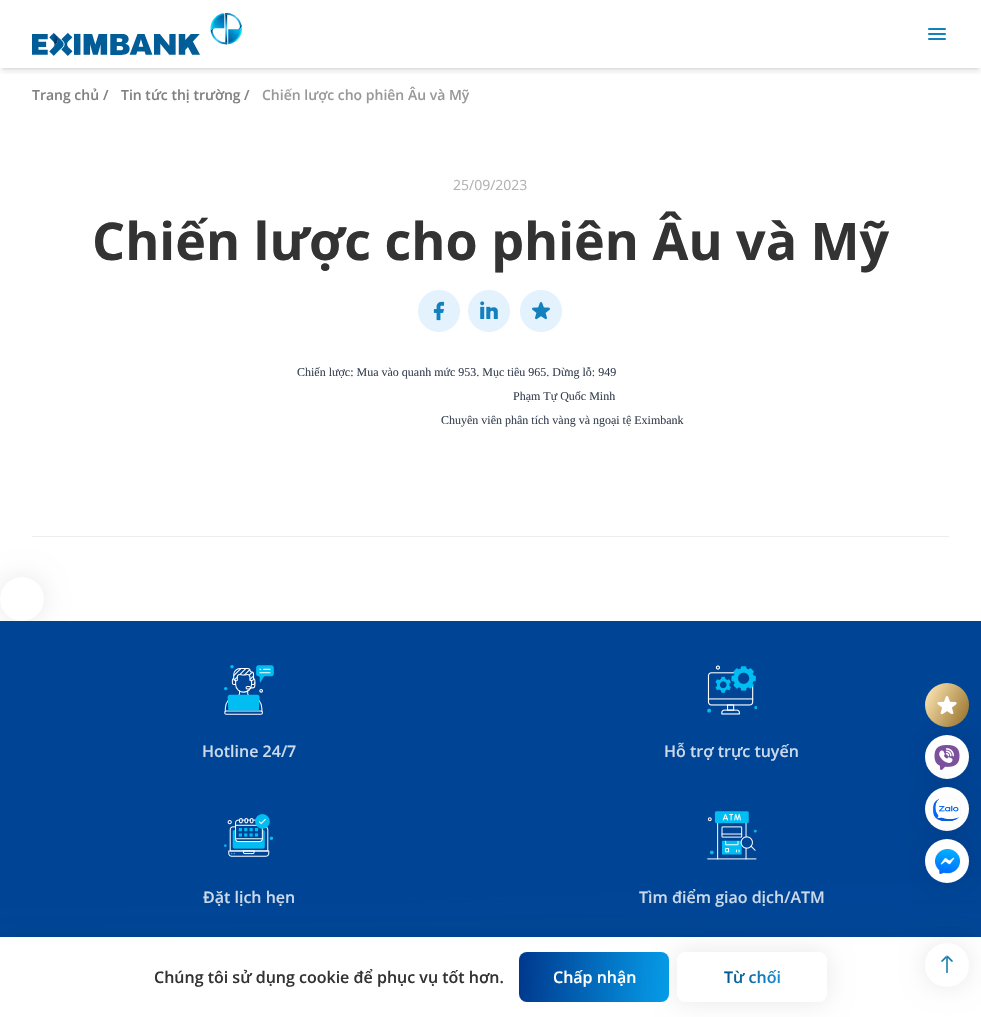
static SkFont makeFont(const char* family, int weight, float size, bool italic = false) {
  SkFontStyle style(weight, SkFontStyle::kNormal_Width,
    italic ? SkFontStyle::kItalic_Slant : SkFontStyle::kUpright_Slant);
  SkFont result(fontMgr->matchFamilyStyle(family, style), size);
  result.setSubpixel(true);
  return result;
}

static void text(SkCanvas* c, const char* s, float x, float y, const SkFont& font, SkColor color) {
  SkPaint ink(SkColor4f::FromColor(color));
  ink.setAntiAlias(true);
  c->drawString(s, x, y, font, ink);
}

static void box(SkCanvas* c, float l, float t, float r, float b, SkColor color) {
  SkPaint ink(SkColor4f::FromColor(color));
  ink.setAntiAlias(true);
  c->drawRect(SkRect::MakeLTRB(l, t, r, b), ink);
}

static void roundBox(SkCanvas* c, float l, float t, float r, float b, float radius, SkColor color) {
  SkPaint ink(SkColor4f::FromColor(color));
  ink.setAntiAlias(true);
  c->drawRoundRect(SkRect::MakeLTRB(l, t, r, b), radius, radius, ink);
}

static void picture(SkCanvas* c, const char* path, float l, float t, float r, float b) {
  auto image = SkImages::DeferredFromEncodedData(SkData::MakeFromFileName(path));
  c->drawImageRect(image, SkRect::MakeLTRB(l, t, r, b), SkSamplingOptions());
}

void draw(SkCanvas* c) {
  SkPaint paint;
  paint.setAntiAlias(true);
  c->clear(0xffffffff);
  c->save();
  c->clipRect(SkRect::MakeLTRB(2, 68, 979, 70));
  paint.setColor(0x1a000000);
  paint.setMaskFilter(SkMaskFilter::MakeBlur(kNormal_SkBlurStyle, 2));
  c->drawRect(SkRect::MakeLTRB(2, 4, 979, 68), paint);
  paint.setMaskFilter(nullptr);
  c->restore();
  c->save();
  c->clipRect(SkRect::MakeLTRB(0, 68, 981, 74));
  paint.setMaskFilter(SkMaskFilter::MakeBlur(kNormal_SkBlurStyle, 3));
  c->drawRect(SkRect::MakeLTRB(1, 5, 980, 71), paint);
  paint.setMaskFilter(nullptr);
  c->restore();
  picture(c, "img_01.png", 32, 13, 242, 56);
  picture(c, "img_02.png", 928, 28, 946, 40);
  SkFont face1 = makeFont("Open Sans", 600, 14);
  text(c, "Trang chủ", 32, 100, face1, 0xff808080);
  text(c, "/", 103, 100, face1, 0xff808080);
  text(c, "Tin tức thị trường", 121, 100, face1, 0xff808080);
  text(c, "/", 244, 100, face1, 0xff808080);
  text(c, "Chiến lược cho phiên Âu và Mỹ", 262, 100, face1, 0xff999999);
  box(c, 32, 536, 949, 537, 0xffededed);
  SkFont face2 = makeFont("Open Sans", 400, 14);
  text(c, "25/09/2023", 453, 190, face2, 0xffb3b3b3);
  SkFont face3 = makeFont("Open Sans", 700, 52);
  text(c, "Chiến lược cho phiên Âu và Mỹ", 92, 260, face3, 0xff333333);
  picture(c, "img_03.png", 418, 290, 460, 332);
  picture(c, "img_04.png", 468, 290, 510, 332);
  picture(c, "img_05.png", 520, 290, 562, 332);
  SkFont face4 = makeFont("Liberation Serif", 400, 12);
  text(c, "Chiến lược: Mua vào quanh mức 953. Mục tiêu 965. Dừng lỗ: 949", 297, 376, face4, 0xff374151);
  text(c, "Phạm Tự Quốc Minh", 513, 400, face4, 0xff374151);
  text(c, "Chuyên viên phân tích vàng và ngoại tệ Eximbank", 441, 424, face4, 0xff374151);
  paint.setColor(0x17000000);
  paint.setMaskFilter(SkMaskFilter::MakeBlur(kNormal_SkBlurStyle, 12.5f));
  c->drawRoundRect(SkRect::MakeLTRB(0, 577, 44, 621), 22, 22, paint);
  paint.setMaskFilter(nullptr);
  paint.setColor(0xffffffff);
  c->drawCircle(22, 599, 22, paint);
  {
    const SkColor colors[] = {0xff004496, 0xff1b96d5};
    const float stops[] = {0.1f, 1};
    SkMatrix m = SkMatrix::Translate(-6.9f, 695).preScale(19628, 1978);
    paint.setShader(SkGradientShader::MakeRadial({0, 0}, 1, colors, stops, 2, SkTileMode::kClamp, 0, &m));
    paint.setAlpha(255);
  }
  c->drawRect(SkRect::MakeLTRB(0, 621, 981, 937), paint);
  picture(c, "img_06.png", 224, 665, 274, 715);
  SkFont face5 = makeFont("Open Sans", 600, 16);
  text(c, "Hotline 24/7", 202, 757, face5, 0xffccdaea);
  picture(c, "img_07.png", 707, 665, 757, 715);
  text(c, "Hỗ trợ trực tuyến", 664, 757, face5, 0xffccdaea);
  picture(c, "img_08.png", 224, 814, 274, 857);
  text(c, "Đặt lịch hẹn", 203, 903, face5, 0xffccdaea);
  picture(c, "img_09.png", 707, 811, 757, 860);
  text(c, "Tìm điểm giao dịch/ATM", 639, 903, face5, 0xffccdaea);
  {
    const SkColor colors[] = {0xffffe7b6, 0xff967229};
    const float stops[] = {0.04f, 0.97f};
    const SkPoint ends[] = {{921, 691}, {973, 719}};
    paint.setShader(SkGradientShader::MakeLinear(ends, colors, stops, 2, SkTileMode::kClamp));
    paint.setAlpha(255);
  }
  c->drawCircle(947, 705, 22, paint);
  picture(c, "img_10.png", 937, 696, 957, 714);
  paint.setShader(nullptr);
  paint.setColor(0x17000000);
  paint.setMaskFilter(SkMaskFilter::MakeBlur(kNormal_SkBlurStyle, 12.5f));
  c->drawRoundRect(SkRect::MakeLTRB(925, 735, 969, 779), 22, 22, paint);
  paint.setMaskFilter(nullptr);
  paint.setColor(0xffffffff);
  c->drawCircle(947, 757, 22, paint);
  picture(c, "img_11.png", 934, 745, 960, 770);
  paint.setColor(0x17000000);
  paint.setMaskFilter(SkMaskFilter::MakeBlur(kNormal_SkBlurStyle, 12.5f));
  c->drawRoundRect(SkRect::MakeLTRB(925, 787, 969, 831), 22, 22, paint);
  paint.setMaskFilter(nullptr);
  paint.setColor(0xffffffff);
  c->drawCircle(947, 809, 22, paint);
  picture(c, "img_12.png", 932, 797, 961, 822);
  paint.setColor(0x17000000);
  paint.setMaskFilter(SkMaskFilter::MakeBlur(kNormal_SkBlurStyle, 12.5f));
  c->drawRoundRect(SkRect::MakeLTRB(925, 839, 969, 883), 22, 22, paint);
  paint.setMaskFilter(nullptr);
  paint.setColor(0xffffffff);
  c->drawCircle(947, 861, 22, paint);
  picture(c, "img_13.png", 935, 849, 960, 874);
  paint.setColor(0x17000000);
  paint.setMaskFilter(SkMaskFilter::MakeBlur(kNormal_SkBlurStyle, 12.5f));
  c->drawRect(SkRect::MakeLTRB(0, 937, 981, 1017), paint);
  paint.setMaskFilter(nullptr);
  box(c, 0, 937, 981, 1017, 0xffffffff);
  paint.setMaskFilter(SkMaskFilter::MakeBlur(kNormal_SkBlurStyle, 12.5f));
  c->drawRoundRect(SkRect::MakeLTRB(925, 943, 969, 987), 22, 22, paint);
  paint.setMaskFilter(nullptr);
  paint.setColor(0xffffffff);
  c->drawPath(SkPathBuilder().moveTo(925, 965).cubicTo(925, 936, 969, 936, 969, 965).cubicTo(969, 994, 925, 994, 925, 965).close().detach(), paint);
  picture(c, "img_14.png", 941, 955, 953, 974);
  text(c, "Chúng tôi sử dụng cookie để phục vụ tốt hơn.", 154, 983, face5, 0xff333333);
  {
    const SkColor colors[] = {0xff00388d, 0xff06a5f1};
    const float stops[] = {0, 1};
    const SkPoint ends[] = {{518, 973}, {681, 982}};
    paint.setShader(SkGradientShader::MakeLinear(ends, colors, stops, 2, SkTileMode::kClamp));
    paint.setAlpha(255);
  }
  c->drawRoundRect(SkRect::MakeLTRB(519, 952, 669, 1002), 8, 8, paint);
  text(c, "Chấp nhận", 553, 983, face5, 0xffffffff);
  paint.setShader(nullptr);
  paint.setColor(0x17000000);
  paint.setMaskFilter(SkMaskFilter::MakeBlur(kNormal_SkBlurStyle, 12.5f));
  c->drawRoundRect(SkRect::MakeLTRB(677, 952, 827, 1002), 8, 8, paint);
  paint.setMaskFilter(nullptr);
  roundBox(c, 677, 952, 827, 1002, 8, 0xffffffff);
  {
    const SkColor colors[] = {0xff00538d, 0xff1b96d5};
    const float stops[] = {0, 1};
    const SkPoint ends[] = {{723, 975}, {786, 979}};
    paint.setShader(SkGradientShader::MakeLinear(ends, colors, stops, 2, SkTileMode::kClamp));
    paint.setAlpha(255);
  }
  c->drawString("Từ chối", 724, 983, face5, paint);
}
